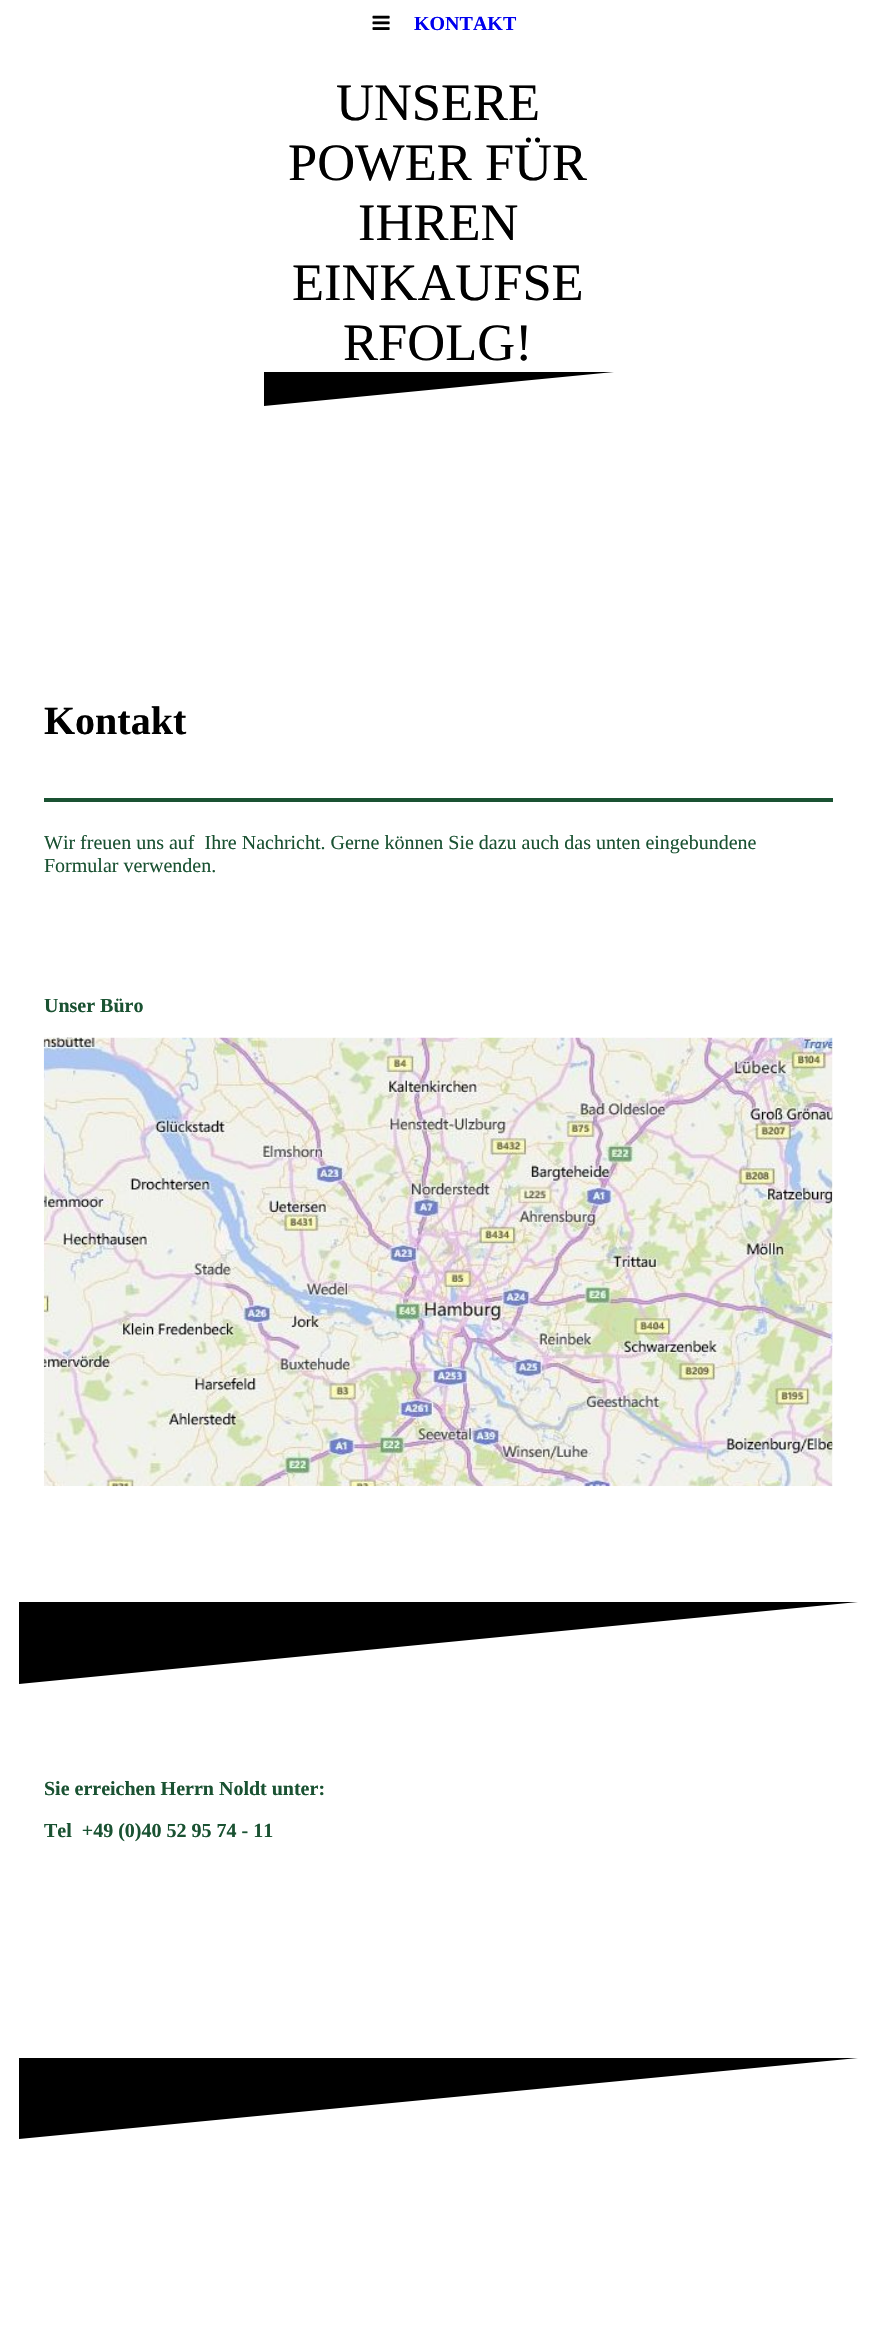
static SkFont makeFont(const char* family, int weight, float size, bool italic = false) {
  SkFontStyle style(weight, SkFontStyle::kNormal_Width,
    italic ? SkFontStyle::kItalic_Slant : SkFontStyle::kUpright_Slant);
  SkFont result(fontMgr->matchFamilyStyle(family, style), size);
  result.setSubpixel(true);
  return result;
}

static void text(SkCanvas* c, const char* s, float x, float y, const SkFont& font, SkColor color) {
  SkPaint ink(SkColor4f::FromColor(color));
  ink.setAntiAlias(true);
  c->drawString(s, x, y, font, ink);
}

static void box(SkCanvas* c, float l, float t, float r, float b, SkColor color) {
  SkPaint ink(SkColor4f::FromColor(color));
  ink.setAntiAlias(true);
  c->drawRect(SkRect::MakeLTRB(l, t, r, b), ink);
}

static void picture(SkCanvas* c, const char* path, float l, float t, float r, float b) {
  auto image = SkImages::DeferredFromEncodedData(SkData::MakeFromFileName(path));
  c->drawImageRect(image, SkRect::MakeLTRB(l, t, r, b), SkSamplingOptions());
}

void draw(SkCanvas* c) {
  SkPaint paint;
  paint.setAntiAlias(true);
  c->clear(0xffffffff);
  picture(c, "img_01.png", 372, 15, 390, 30);
  SkFont face1 = makeFont("Liberation Serif", 700, 20);
  text(c, "KONTAKT", 414, 30, face1, 0xff0000ee);
  SkFont face2 = makeFont("Liberation Serif", 400, 52.5f);
  text(c, "UNSERE", 336, 120, face2, 0xff000000);
  text(c, "POWER FÜR", 288, 180, face2, 0xff000000);
  text(c, "IHREN", 358, 240, face2, 0xff000000);
  text(c, "EINKAUFSE", 292, 300, face2, 0xff000000);
  text(c, "RFOLG!", 343, 360, face2, 0xff000000);
  paint.setColor(0xff000000);
  c->drawPath(SkPathBuilder().moveTo(264, 406).lineTo(264, 372).lineTo(614, 372).close().detach(), paint);
  SkFont face3 = makeFont("Liberation Serif", 700, 40);
  text(c, "Kontakt", 44, 734, face3, 0xff000000);
  box(c, 44, 798, 833, 802, 0xff1a5232);
  SkFont face4 = makeFont("Liberation Serif", 400, 20);
  text(c, "Wir freuen uns auf  Ihre Nachricht. Gerne können Sie dazu auch das unten eingebundene", 44, 849, face4, 0xff1a5232);
  text(c, "Formular verwenden.", 44, 872, face4, 0xff1a5232);
  text(c, "Unser Büro", 44, 1012, face1, 0xff1a5232);
  picture(c, "img_02.png", 43, 1037, 833, 1487);
  c->drawPath(SkPathBuilder().moveTo(19, 1684).lineTo(19, 1602).lineTo(858, 1602).close().detach(), paint);
  text(c, "Sie erreichen Herrn Noldt unter:", 44, 1795, face1, 0xff1a5232);
  text(c, "Tel  +49 (0)40 52 95 74 - 11", 44, 1837, face1, 0xff1a5232);
  c->drawPath(SkPathBuilder().moveTo(19, 2139).lineTo(19, 2058).lineTo(858, 2058).close().detach(), paint);
}
